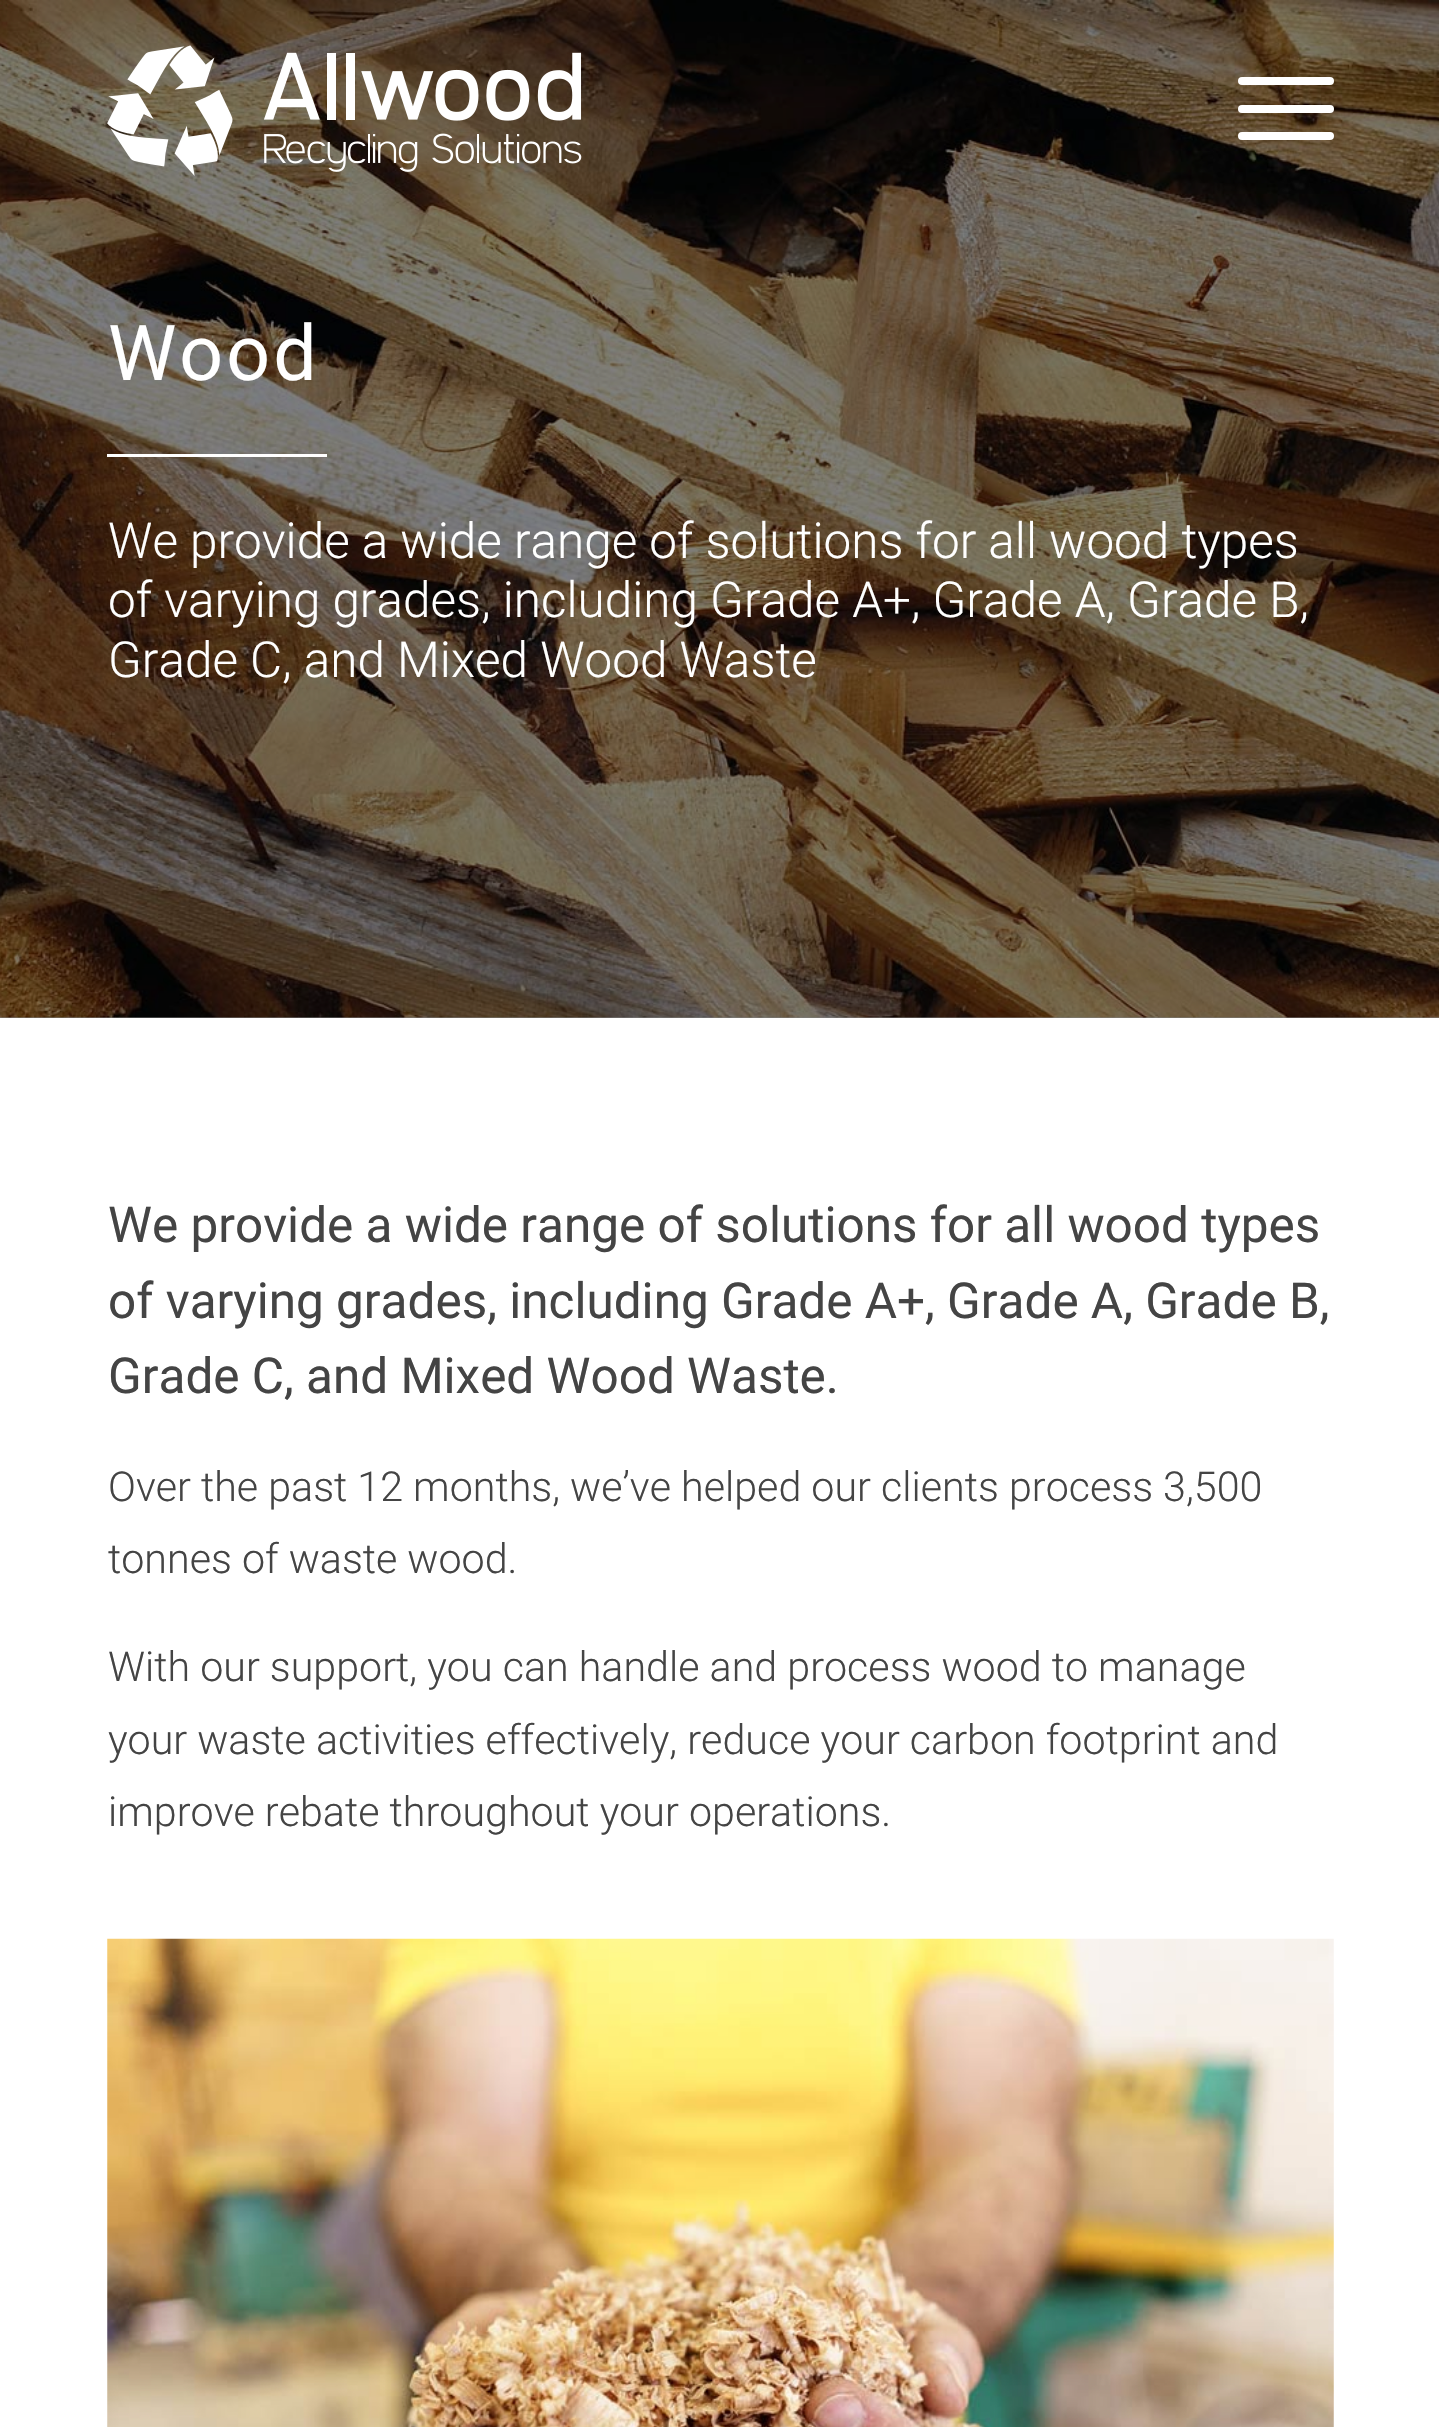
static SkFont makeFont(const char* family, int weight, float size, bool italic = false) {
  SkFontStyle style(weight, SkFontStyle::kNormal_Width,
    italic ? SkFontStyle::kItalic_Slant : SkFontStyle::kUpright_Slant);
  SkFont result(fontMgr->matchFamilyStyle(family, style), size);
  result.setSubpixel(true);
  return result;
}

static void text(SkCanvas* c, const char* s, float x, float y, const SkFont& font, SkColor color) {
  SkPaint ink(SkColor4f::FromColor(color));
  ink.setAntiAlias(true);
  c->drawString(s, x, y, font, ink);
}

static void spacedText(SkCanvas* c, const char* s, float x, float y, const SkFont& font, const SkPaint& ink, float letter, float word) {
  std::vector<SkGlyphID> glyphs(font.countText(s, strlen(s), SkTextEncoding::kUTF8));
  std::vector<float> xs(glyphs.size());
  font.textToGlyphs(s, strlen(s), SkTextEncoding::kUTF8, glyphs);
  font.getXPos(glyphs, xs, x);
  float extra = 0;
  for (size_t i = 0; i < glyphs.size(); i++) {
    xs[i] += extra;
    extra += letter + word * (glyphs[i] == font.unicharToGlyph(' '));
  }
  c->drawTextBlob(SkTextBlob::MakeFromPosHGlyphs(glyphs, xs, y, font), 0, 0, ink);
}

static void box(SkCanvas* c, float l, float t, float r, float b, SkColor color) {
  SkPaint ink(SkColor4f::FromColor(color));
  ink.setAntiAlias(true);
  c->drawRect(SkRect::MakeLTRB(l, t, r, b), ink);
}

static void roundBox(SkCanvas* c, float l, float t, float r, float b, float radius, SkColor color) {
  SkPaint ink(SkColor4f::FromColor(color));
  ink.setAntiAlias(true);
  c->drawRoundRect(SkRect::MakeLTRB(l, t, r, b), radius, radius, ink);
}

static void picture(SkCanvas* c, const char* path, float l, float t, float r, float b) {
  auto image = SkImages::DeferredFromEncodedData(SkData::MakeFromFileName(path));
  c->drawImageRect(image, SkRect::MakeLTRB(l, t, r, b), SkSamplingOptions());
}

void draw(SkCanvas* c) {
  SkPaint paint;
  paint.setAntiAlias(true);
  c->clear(0xffffffff);
  box(c, 0, 1017, 1439, 1018, 0xff808080);
  picture(c, "img_02.png", 0, 0, 1439, 1018);
  picture(c, "img_01.png", 107, 45, 582, 176);
  roundBox(c, 1238, 105, 1334, 113, 4, 0xffffffff);
  roundBox(c, 1238, 77, 1334, 85, 4, 0xffffffff);
  roundBox(c, 1238, 132, 1334, 140, 4, 0xffffffff);
  SkFont face1 = makeFont("Roboto", 400, 77);
  paint.setColor(0xffffffff);
  spacedText(c, "Wood", 108, 380, face1, paint, 3, 0);
  box(c, 107, 454, 327, 457, 0xffffffff);
  SkFont face2 = makeFont("Roboto", 300, 49.5f);
  text(c, "We provide a wide range of solutions for all wood types", 108, 558, face2, 0xffffffff);
  text(c, "of varying grades, including Grade A+, Grade A, Grade B,", 108, 617, face2, 0xffffffff);
  text(c, "Grade C, and Mixed Wood Waste", 108, 677, face2, 0xffffffff);
  SkFont face3 = makeFont("Roboto", 400, 49.5f);
  text(c, "We provide a wide range of solutions for all wood types", 108, 1242, face3, 0xff444444);
  text(c, "of varying grades, including Grade A+, Grade A, Grade B,", 108, 1318, face3, 0xff444444);
  text(c, "Grade C, and Mixed Wood Waste.", 108, 1393, face3, 0xff444444);
  SkFont face4 = makeFont("Roboto", 300, 41.25f);
  text(c, "Over the past 12 months, we’ve helped our clients process 3,500", 108, 1501, face4, 0xff444444);
  text(c, "tonnes of waste wood.", 108, 1573, face4, 0xff444444);
  text(c, "With our support, you can handle and process wood to manage", 108, 1681, face4, 0xff444444);
  text(c, "your waste activities effectively, reduce your carbon footprint and", 108, 1754, face4, 0xff444444);
  text(c, "improve rebate throughout your operations.", 108, 1826, face4, 0xff444444);
  picture(c, "img_03.png", 107, 1938, 1334, 2427);
}
